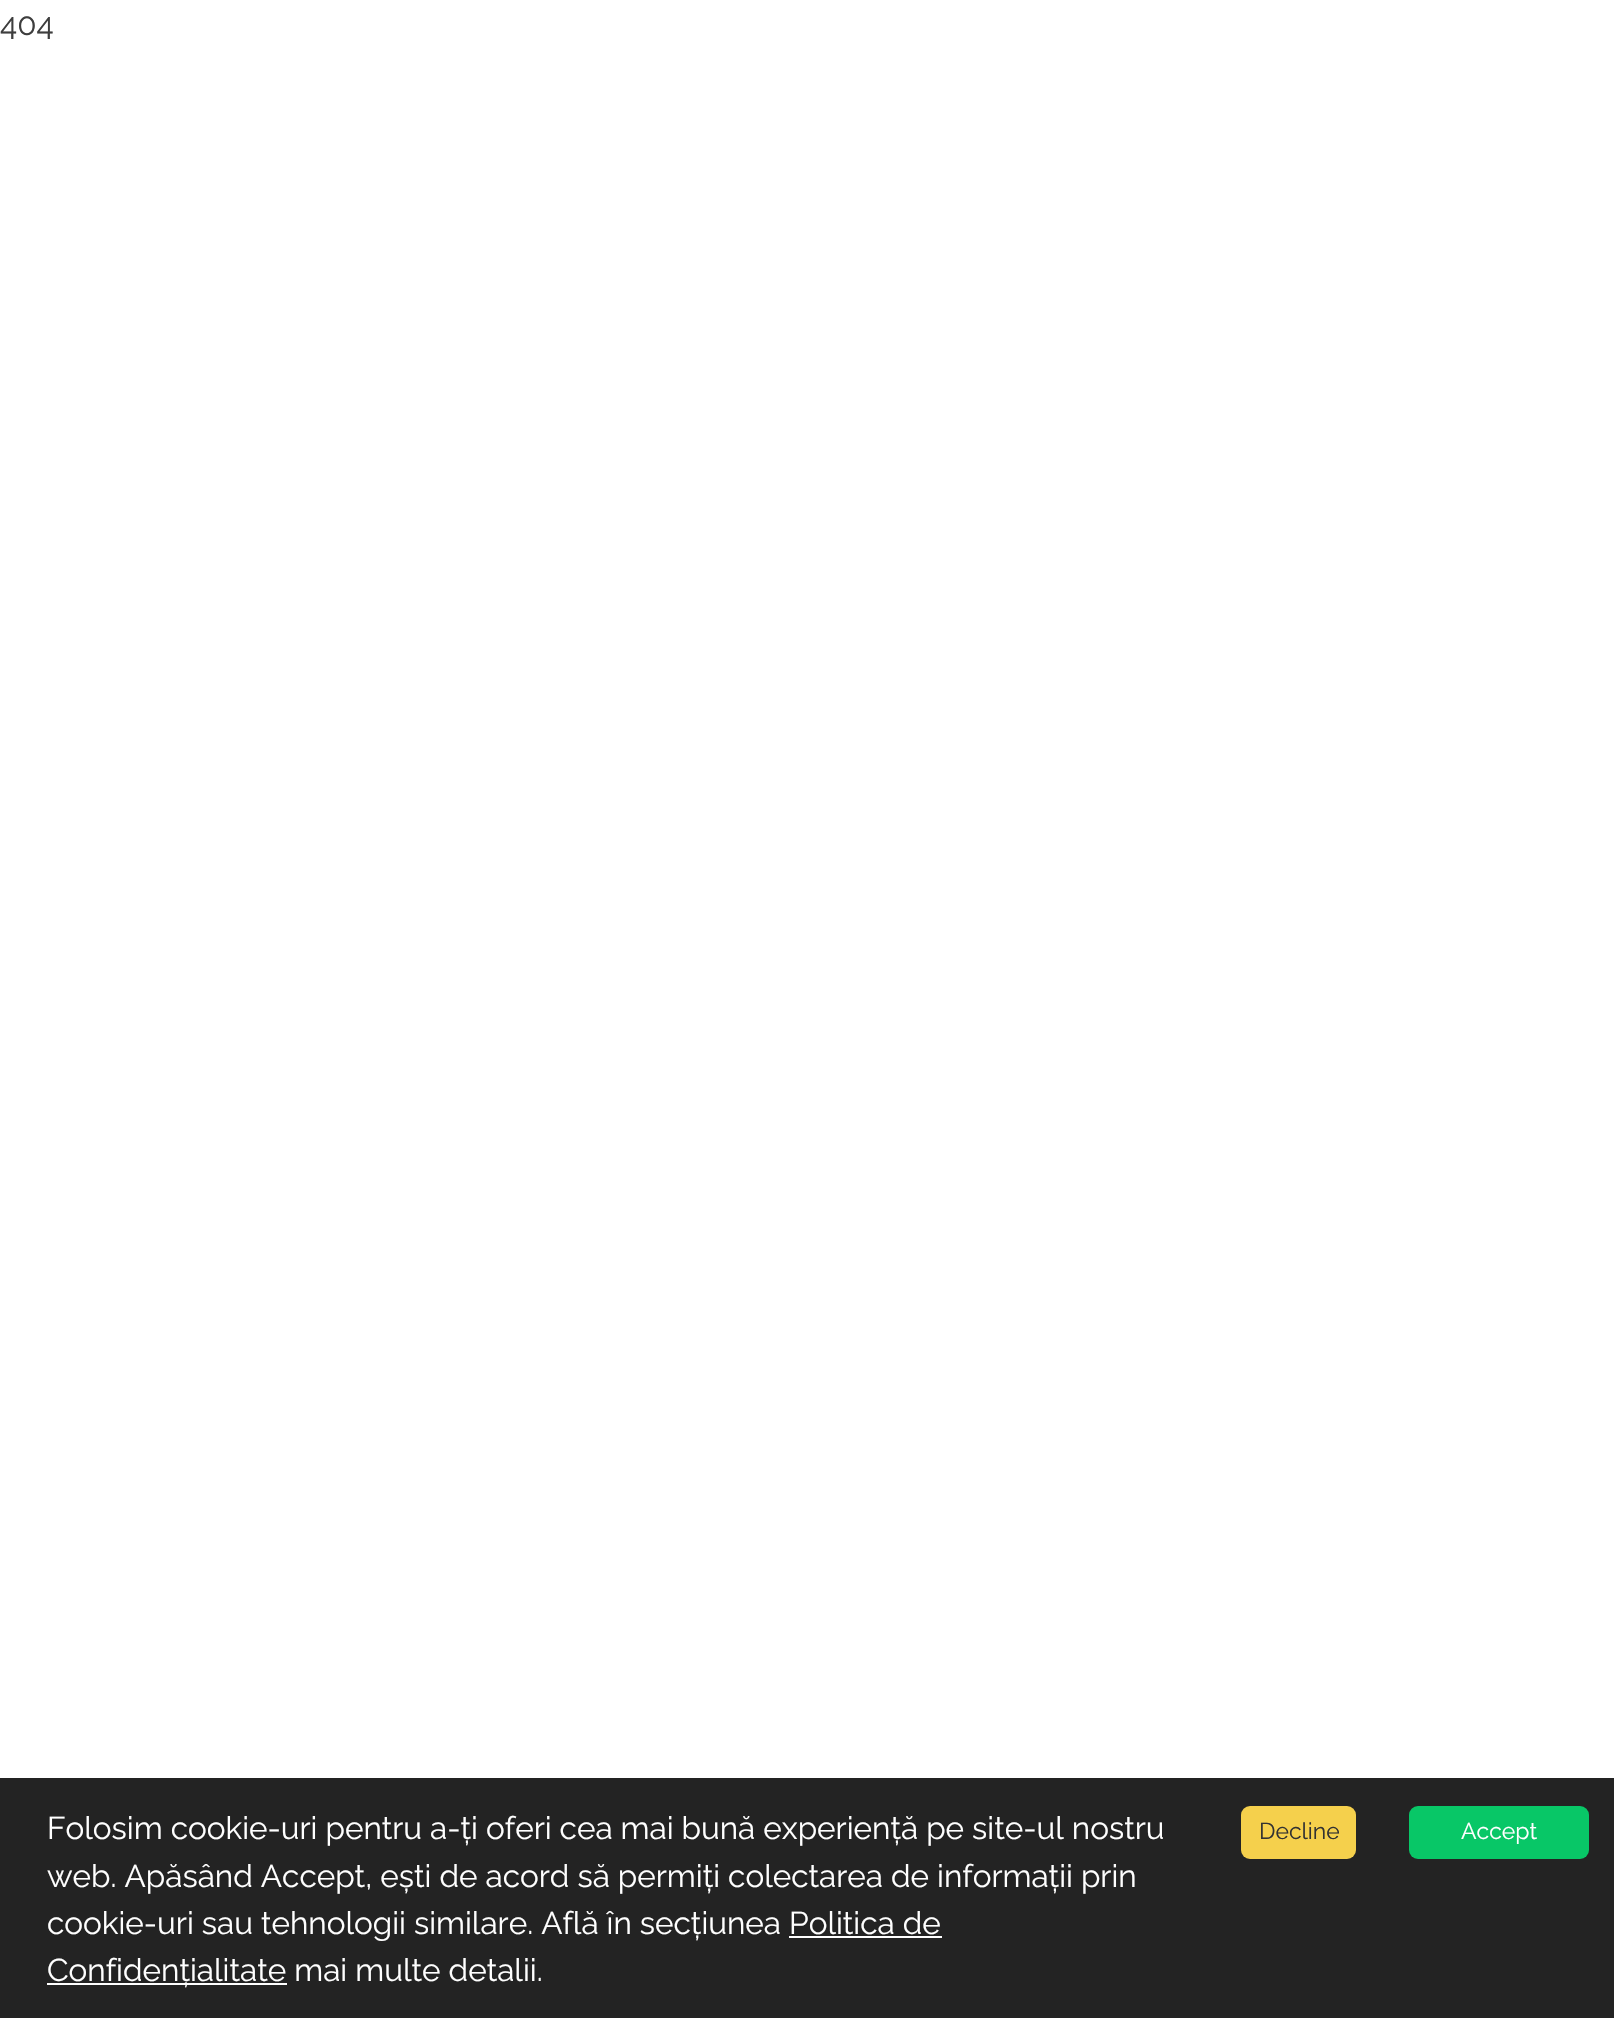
static SkFont makeFont(const char* family, int weight, float size, bool italic = false) {
  SkFontStyle style(weight, SkFontStyle::kNormal_Width,
    italic ? SkFontStyle::kItalic_Slant : SkFontStyle::kUpright_Slant);
  SkFont result(fontMgr->matchFamilyStyle(family, style), size);
  result.setSubpixel(true);
  return result;
}

static void text(SkCanvas* c, const char* s, float x, float y, const SkFont& font, SkColor color) {
  SkPaint ink(SkColor4f::FromColor(color));
  ink.setAntiAlias(true);
  c->drawString(s, x, y, font, ink);
}

static void box(SkCanvas* c, float l, float t, float r, float b, SkColor color) {
  SkPaint ink(SkColor4f::FromColor(color));
  ink.setAntiAlias(true);
  c->drawRect(SkRect::MakeLTRB(l, t, r, b), ink);
}

static void roundBox(SkCanvas* c, float l, float t, float r, float b, float radius, SkColor color) {
  SkPaint ink(SkColor4f::FromColor(color));
  ink.setAntiAlias(true);
  c->drawRoundRect(SkRect::MakeLTRB(l, t, r, b), radius, radius, ink);
}

void draw(SkCanvas* c) {
  SkPaint paint;
  paint.setAntiAlias(true);
  c->clear(0xffffffff);
  SkFont face1 = makeFont("Raleway", 400, 31.5f);
  text(c, "404", 0, 35, face1, 0xff3e3e3e);
  box(c, 0, 1778, 1614, 2018, 0xff232323);
  text(c, "Folosim cookie-uri pentru a-ți oferi cea mai bună experiență pe site-ul nostru", 47, 1839, face1, 0xffffffff);
  text(c, "web. Apăsând Accept, ești de acord să permiți colectarea de informații prin", 47, 1887, face1, 0xffffffff);
  text(c, "cookie-uri sau tehnologii similare. Află în secțiunea Politica de", 47, 1934, face1, 0xffffffff);
  box(c, 47, 1983, 287, 1985, 0xffffffff);
  text(c, "Confidențialitate mai multe detalii.", 47, 1981, face1, 0xffffffff);
  box(c, 789, 1936, 942, 1938, 0xffffffff);
  roundBox(c, 1241, 1806, 1356, 1859, 9, 0xfff5d04c);
  SkFont face2 = makeFont("Raleway", 400, 23);
  text(c, "Decline", 1259, 1839, face2, 0xff323232);
  roundBox(c, 1409, 1806, 1589, 1859, 9, 0xff08c767);
  text(c, "Accept", 1461, 1839, face2, 0xffffffff);
}
